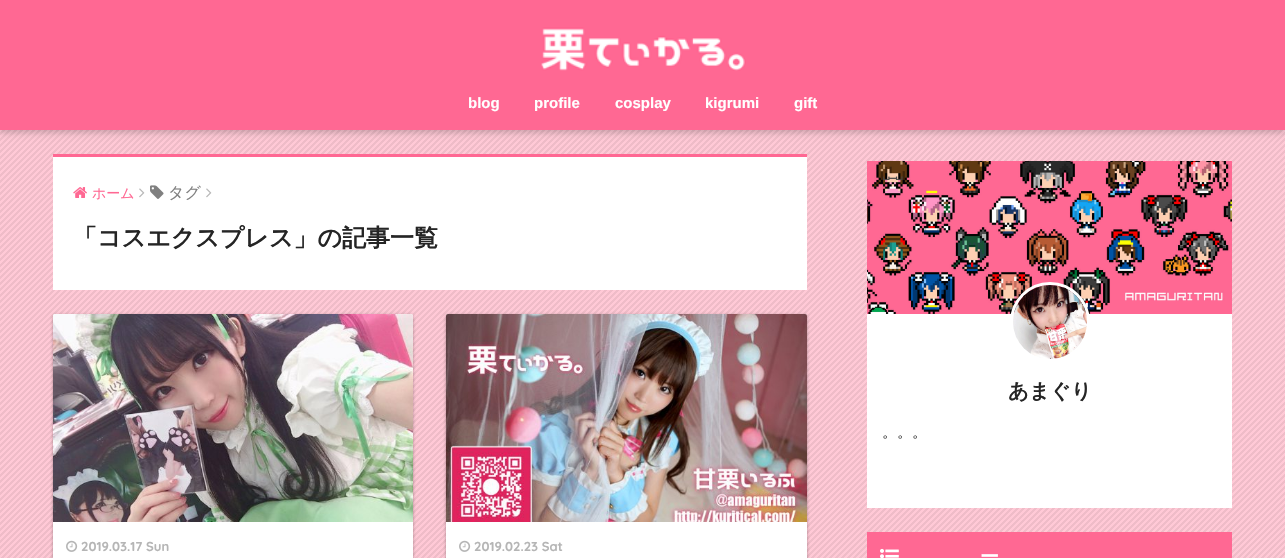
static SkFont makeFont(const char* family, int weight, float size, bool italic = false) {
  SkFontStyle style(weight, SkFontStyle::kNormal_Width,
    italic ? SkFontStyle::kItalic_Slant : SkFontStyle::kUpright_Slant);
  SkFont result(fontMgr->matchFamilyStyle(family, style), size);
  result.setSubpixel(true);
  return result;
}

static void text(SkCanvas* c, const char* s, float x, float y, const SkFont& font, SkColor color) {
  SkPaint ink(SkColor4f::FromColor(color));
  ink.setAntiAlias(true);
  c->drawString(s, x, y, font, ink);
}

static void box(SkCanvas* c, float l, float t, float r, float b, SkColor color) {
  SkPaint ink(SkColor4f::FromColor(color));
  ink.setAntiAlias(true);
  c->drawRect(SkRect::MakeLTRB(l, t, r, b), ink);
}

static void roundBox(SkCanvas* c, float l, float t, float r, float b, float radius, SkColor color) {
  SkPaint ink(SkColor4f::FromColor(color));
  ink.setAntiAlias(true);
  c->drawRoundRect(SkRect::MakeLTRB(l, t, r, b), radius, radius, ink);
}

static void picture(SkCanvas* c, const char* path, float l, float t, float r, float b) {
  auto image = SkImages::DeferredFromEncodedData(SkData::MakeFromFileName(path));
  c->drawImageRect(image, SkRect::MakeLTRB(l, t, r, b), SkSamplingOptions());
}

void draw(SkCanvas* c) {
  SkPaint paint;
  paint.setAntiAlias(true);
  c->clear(0xffffc9d6);
  picture(c, "img_01.png", 0, 130, 1285, 558);
  paint.setColor(0x2e000000);
  paint.setMaskFilter(SkMaskFilter::MakeBlur(kNormal_SkBlurStyle, 3));
  c->drawRect(SkRect::MakeLTRB(0, 3, 1285, 133), paint);
  paint.setMaskFilter(nullptr);
  box(c, 0, 0, 1285, 130, 0xffff6893);
  picture(c, "img_02.png", 541, 27, 746, 71);
  SkFont face1 = makeFont("Liberation Sans", 700, 15);
  text(c, "blog", 468, 108, face1, 0xffffffff);
  text(c, "profile", 534, 108, face1, 0xffffffff);
  text(c, "cosplay", 615, 108, face1, 0xffffffff);
  text(c, "kigrumi", 705, 108, face1, 0xffffffff);
  text(c, "gift", 794, 108, face1, 0xffffffff);
  box(c, 53, 157, 807, 290, 0xffffffff);
  box(c, 53, 154, 807, 157, 0xffff6893);
  picture(c, "img_03.png", 73, 187, 87, 198);
  SkFont face2 = makeFont("WenQuanYi Zen Hei", 500, 14);
  text(c, "ホーム", 92, 198, face2, 0xffff6893);
  picture(c, "img_04.png", 139, 188, 145, 198);
  picture(c, "img_05.png", 150, 185, 164, 199);
  SkFont face3 = makeFont("WenQuanYi Zen Hei", 500, 16);
  text(c, "タグ", 168, 198, face3, 0xff808080);
  picture(c, "img_04.png", 206, 188, 212, 198);
  SkFont face4 = makeFont("WenQuanYi Zen Hei", 700, 24);
  text(c, "「コスエクスプレス」の記事一覧", 73, 246, face4, 0xff252525);
  paint.setColor(0x38000000);
  paint.setMaskFilter(SkMaskFilter::MakeBlur(kNormal_SkBlurStyle, 1.5f));
  c->drawRoundRect(SkRect::MakeLTRB(53, 316, 413, 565), 2, 2, paint);
  paint.setMaskFilter(nullptr);
  paint.setColor(0x1f000000);
  paint.setMaskFilter(SkMaskFilter::MakeBlur(kNormal_SkBlurStyle, 1.5f));
  c->drawRoundRect(SkRect::MakeLTRB(53, 314, 413, 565), 2, 2, paint);
  paint.setMaskFilter(nullptr);
  roundBox(c, 53, 314, 413, 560, 2, 0xffffffff);
  picture(c, "img_06.png", 53, 314, 413, 522);
  picture(c, "img_07.png", 66, 540, 78, 552);
  SkFont face5 = makeFont("Quicksand", 700, 13);
  text(c, "2019.03.17 Sun", 81, 551, face5, 0xffb5b5b5);
  paint.setColor(0x38000000);
  paint.setMaskFilter(SkMaskFilter::MakeBlur(kNormal_SkBlurStyle, 1.5f));
  c->drawRoundRect(SkRect::MakeLTRB(446, 316, 807, 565), 2, 2, paint);
  paint.setMaskFilter(nullptr);
  paint.setColor(0x1f000000);
  paint.setMaskFilter(SkMaskFilter::MakeBlur(kNormal_SkBlurStyle, 1.5f));
  c->drawRoundRect(SkRect::MakeLTRB(446, 314, 807, 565), 2, 2, paint);
  paint.setMaskFilter(nullptr);
  roundBox(c, 446, 314, 807, 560, 2, 0xffffffff);
  picture(c, "img_08.png", 446, 314, 807, 522);
  picture(c, "img_07.png", 459, 540, 471, 552);
  text(c, "2019.02.23 Sat", 474, 551, face5, 0xffb5b5b5);
  box(c, 867, 314, 1232, 508, 0xffffffff);
  picture(c, "img_09.png", 867, 161, 1232, 314);
  paint.setStyle(SkPaint::kStroke_Style);
  paint.setStrokeWidth(3);
  paint.setColor(0xffffffff);
  c->drawCircle(1050, 322, 38.5f, paint);
  picture(c, "img_10.png", 1013, 285, 1087, 359);
  SkFont face6 = makeFont("WenQuanYi Zen Hei", 700, 20.5f);
  text(c, "あまぐり", 1008, 398, face6, 0xff252525);
  SkFont face7 = makeFont("WenQuanYi Zen Hei", 500, 15);
  text(c, "。。。", 882, 437, face7, 0xff252525);
  box(c, 867, 532, 1232, 558, 0xffff6893);
  picture(c, "img_11.png", 880, 548, 899, 558);
  SkFont face8 = makeFont("WenQuanYi Zen Hei", 700, 19);
  text(c, "ー", 980, 563, face8, 0xffffffff);
}
